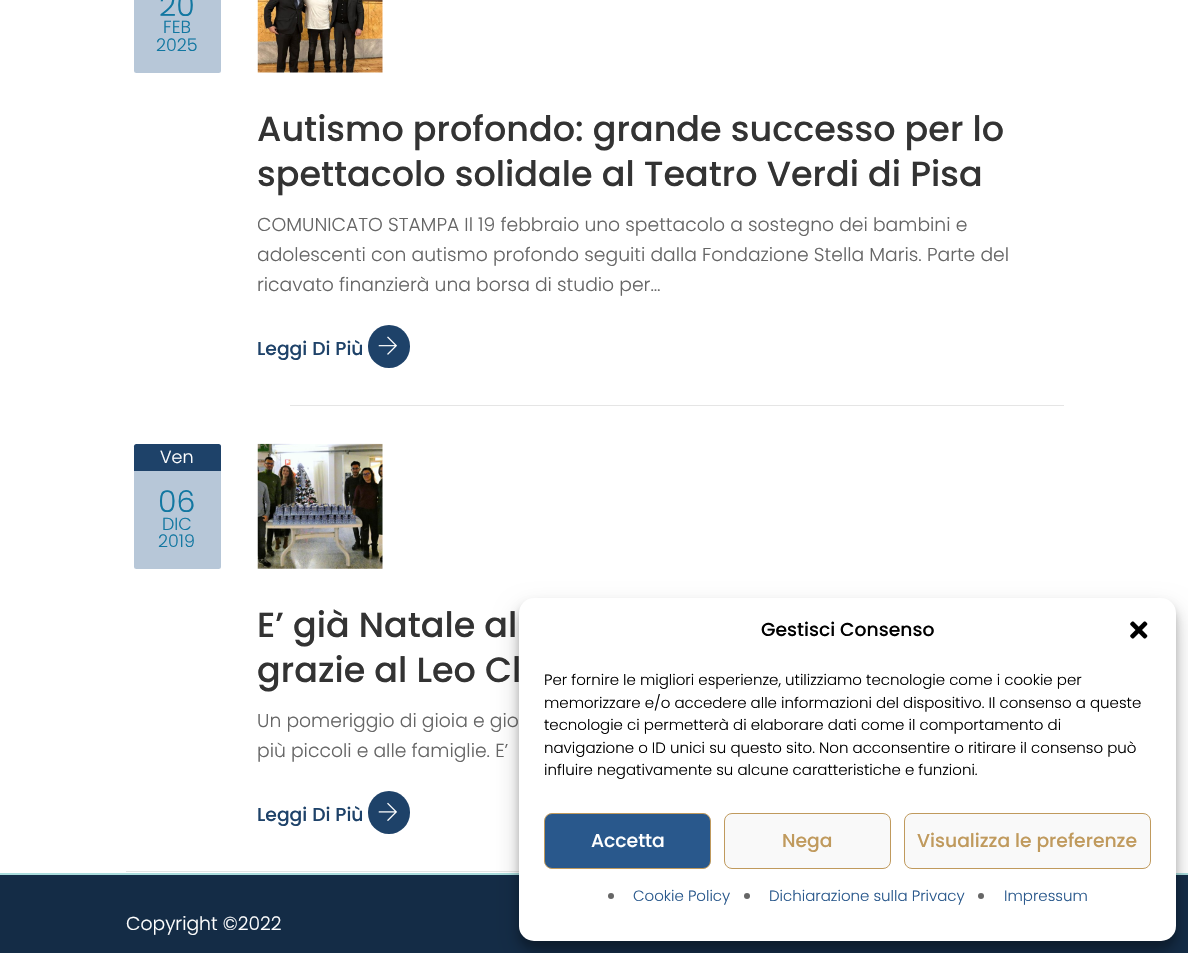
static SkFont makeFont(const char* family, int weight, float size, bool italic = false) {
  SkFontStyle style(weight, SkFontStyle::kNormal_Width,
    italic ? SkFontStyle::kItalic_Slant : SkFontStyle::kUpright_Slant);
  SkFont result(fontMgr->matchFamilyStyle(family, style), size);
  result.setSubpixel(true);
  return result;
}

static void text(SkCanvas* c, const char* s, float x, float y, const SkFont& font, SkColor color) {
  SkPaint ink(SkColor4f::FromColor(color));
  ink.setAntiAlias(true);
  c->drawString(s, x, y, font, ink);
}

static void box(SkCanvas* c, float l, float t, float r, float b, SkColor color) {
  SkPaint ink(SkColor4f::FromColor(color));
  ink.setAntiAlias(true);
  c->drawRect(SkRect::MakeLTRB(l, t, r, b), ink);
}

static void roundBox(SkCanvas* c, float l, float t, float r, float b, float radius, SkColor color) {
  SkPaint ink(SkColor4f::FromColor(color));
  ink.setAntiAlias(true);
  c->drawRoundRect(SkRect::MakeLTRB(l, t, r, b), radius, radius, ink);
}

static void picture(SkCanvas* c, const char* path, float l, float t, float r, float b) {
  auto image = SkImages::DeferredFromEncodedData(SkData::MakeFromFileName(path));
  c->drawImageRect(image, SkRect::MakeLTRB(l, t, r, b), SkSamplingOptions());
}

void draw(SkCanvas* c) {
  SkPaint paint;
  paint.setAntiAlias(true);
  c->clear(0xffffffff);
  roundBox(c, 134, -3, 221, 73, 2.5f, 0xffb7c7d8);
  SkFont face1 = makeFont("Poppins", 300, 30);
  text(c, "20", 159, 16, face1, 0xff1277a1);
  SkFont face2 = makeFont("Poppins", 300, 17.5f);
  text(c, "FEB", 163, 33, face2, 0xff1277a1);
  text(c, "2025", 156, 51, face2, 0xff1277a1);
  picture(c, "img_01.png", 257, 0, 383, 73);
  SkFont face3 = makeFont("Poppins", 500, 35);
  text(c, "Autismo profondo: grande successo per lo", 257, 141, face3, 0xff333333);
  text(c, "spettacolo solidale al Teatro Verdi di Pisa", 257, 186, face3, 0xff333333);
  c->save();
  c->clipRect(SkRect::MakeLTRB(258, 0, 1064, 405));
  SkFont face4 = makeFont("Poppins", 300, 18.75f);
  text(c, "COMUNICATO STAMPA Il 19 febbraio uno spettacolo a sostegno dei bambini e", 257, 231, face4, 0xff666666);
  text(c, "adolescenti con autismo profondo seguiti dalla Fondazione Stella Maris. Parte del", 257, 261, face4, 0xff666666);
  c->restore();
  text(c, "ricavato finanzierà una borsa di studio per…", 257, 291, face4, 0xff666666);
  SkFont face5 = makeFont("Poppins", 500, 18.75f);
  text(c, "Leggi Di Più", 257, 355, face5, 0xff1e4269);
  roundBox(c, 368, 325, 410, 368, 21, 0xff1e4269);
  picture(c, "img_02.png", 378, 336, 397, 355);
  box(c, 290, 405, 1064, 406, 0xffe5e5e5);
  box(c, 126, 871, 519, 872, 0xffe5e5e5);
  roundBox(c, 134, 444, 221, 569, 2.5f, 0xffb7c7d8);
  paint.setColor(0xff1e4269);
  c->drawPath(SkPathBuilder().moveTo(136.5f, 444).lineTo(218.5f, 444).cubicTo(220, 444, 221, 445, 221, 446.5f).lineTo(221, 471).lineTo(134, 471).lineTo(134, 446.5f).cubicTo(134, 445, 135, 444, 136.5f, 444).close().detach(), paint);
  text(c, "Ven", 160, 463, face2, 0xffffffff);
  text(c, "06", 158, 512, face1, 0xff1277a1);
  text(c, "DIC", 162, 530, face2, 0xff1277a1);
  text(c, "2019", 158, 547, face2, 0xff1277a1);
  picture(c, "img_03.png", 257, 443, 383, 569);
  text(c, "E’ già Natale al", 257, 637, face3, 0xff333333);
  text(c, "grazie al Leo Cl", 257, 682, face3, 0xff333333);
  text(c, "Un pomeriggio di gioia e gio", 257, 727, face4, 0xff666666);
  text(c, "più piccoli e alle famiglie. E’", 257, 757, face4, 0xff666666);
  text(c, "Leggi Di Più", 257, 821, face5, 0xff1e4269);
  roundBox(c, 368, 791, 410, 834, 21, 0xff1e4269);
  picture(c, "img_04.png", 378, 802, 397, 821);
  box(c, 0, 873, 1188, 875, 0xffaadddd);
  box(c, 0, 875, 1188, 953, 0xff142c46);
  text(c, "Copyright ©2022", 126, 930, face4, 0xffffffff);
  paint.setColor(0x3b000000);
  paint.setMaskFilter(SkMaskFilter::MakeBlur(kNormal_SkBlurStyle, 4));
  c->drawRoundRect(SkRect::MakeLTRB(519, 605, 1176, 949), 15, 15, paint);
  paint.setMaskFilter(nullptr);
  paint.setColor(0x30000000);
  paint.setMaskFilter(SkMaskFilter::MakeBlur(kNormal_SkBlurStyle, 12.5f));
  c->drawRoundRect(SkRect::MakeLTRB(519, 610, 1176, 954), 15, 15, paint);
  paint.setMaskFilter(nullptr);
  roundBox(c, 519, 598, 1176, 941, 15, 0xffffffff);
  text(c, "Gestisci Consenso", 761, 636, face5, 0xff000000);
  picture(c, "img_05.png", 1130, 621, 1148, 639);
  SkFont face6 = makeFont("Poppins", 300, 15);
  text(c, "Per fornire le migliori esperienze, utilizziamo tecnologie come i cookie per", 544, 685, face6, 0xff000000);
  text(c, "memorizzare e/o accedere alle informazioni del dispositivo. Il consenso a queste", 544, 708, face6, 0xff000000);
  text(c, "tecnologie ci permetterà di elaborare dati come il comportamento di", 544, 730, face6, 0xff000000);
  text(c, "navigazione o ID unici su questo sito. Non acconsentire o ritirare il consenso può", 544, 753, face6, 0xff000000);
  text(c, "influire negativamente su alcune caratteristiche e funzioni.", 544, 775, face6, 0xff000000);
  paint.setColor(0xff29588c);
  c->drawRoundRect(SkRect::MakeLTRB(544.5f, 813.5f, 710.5f, 868.5f), 7.5f, 7.5f, paint);
  paint.setStyle(SkPaint::kStroke_Style);
  paint.setStrokeWidth(1);
  paint.setColor(0xffc09a5d);
  c->drawRoundRect(SkRect::MakeLTRB(544.5f, 813.5f, 710.5f, 868.5f), 7.5f, 7.5f, paint);
  text(c, "Accetta", 591, 847, face5, 0xffffffff);
  paint.setStyle(SkPaint::kFill_Style);
  paint.setColor(0xfff9f9f9);
  c->drawRoundRect(SkRect::MakeLTRB(724.5f, 813.5f, 890.5f, 868.5f), 7.5f, 7.5f, paint);
  paint.setStyle(SkPaint::kStroke_Style);
  paint.setColor(0xffc09a5d);
  c->drawRoundRect(SkRect::MakeLTRB(724.5f, 813.5f, 890.5f, 868.5f), 7.5f, 7.5f, paint);
  text(c, "Nega", 782, 847, face5, 0xffc09a5d);
  paint.setStyle(SkPaint::kFill_Style);
  paint.setColor(0xfff9f9f9);
  c->drawRoundRect(SkRect::MakeLTRB(904.5f, 813.5f, 1150.5f, 868.5f), 7.5f, 7.5f, paint);
  paint.setStyle(SkPaint::kStroke_Style);
  paint.setColor(0xffc09a5d);
  c->drawRoundRect(SkRect::MakeLTRB(904.5f, 813.5f, 1150.5f, 868.5f), 7.5f, 7.5f, paint);
  text(c, "Visualizza le preferenze", 917, 847, face5, 0xffc09a5d);
  paint.setStyle(SkPaint::kFill_Style);
  paint.setColor(0xff666666);
  c->drawCircle(611, 896, 3, paint);
  text(c, "Cookie Policy", 633, 901, face6, 0xff29588c);
  c->drawCircle(747, 896, 3, paint);
  text(c, "Dichiarazione sulla Privacy", 769, 901, face6, 0xff29588c);
  c->drawCircle(981, 896, 3, paint);
  text(c, "Impressum", 1004, 901, face6, 0xff29588c);
}
